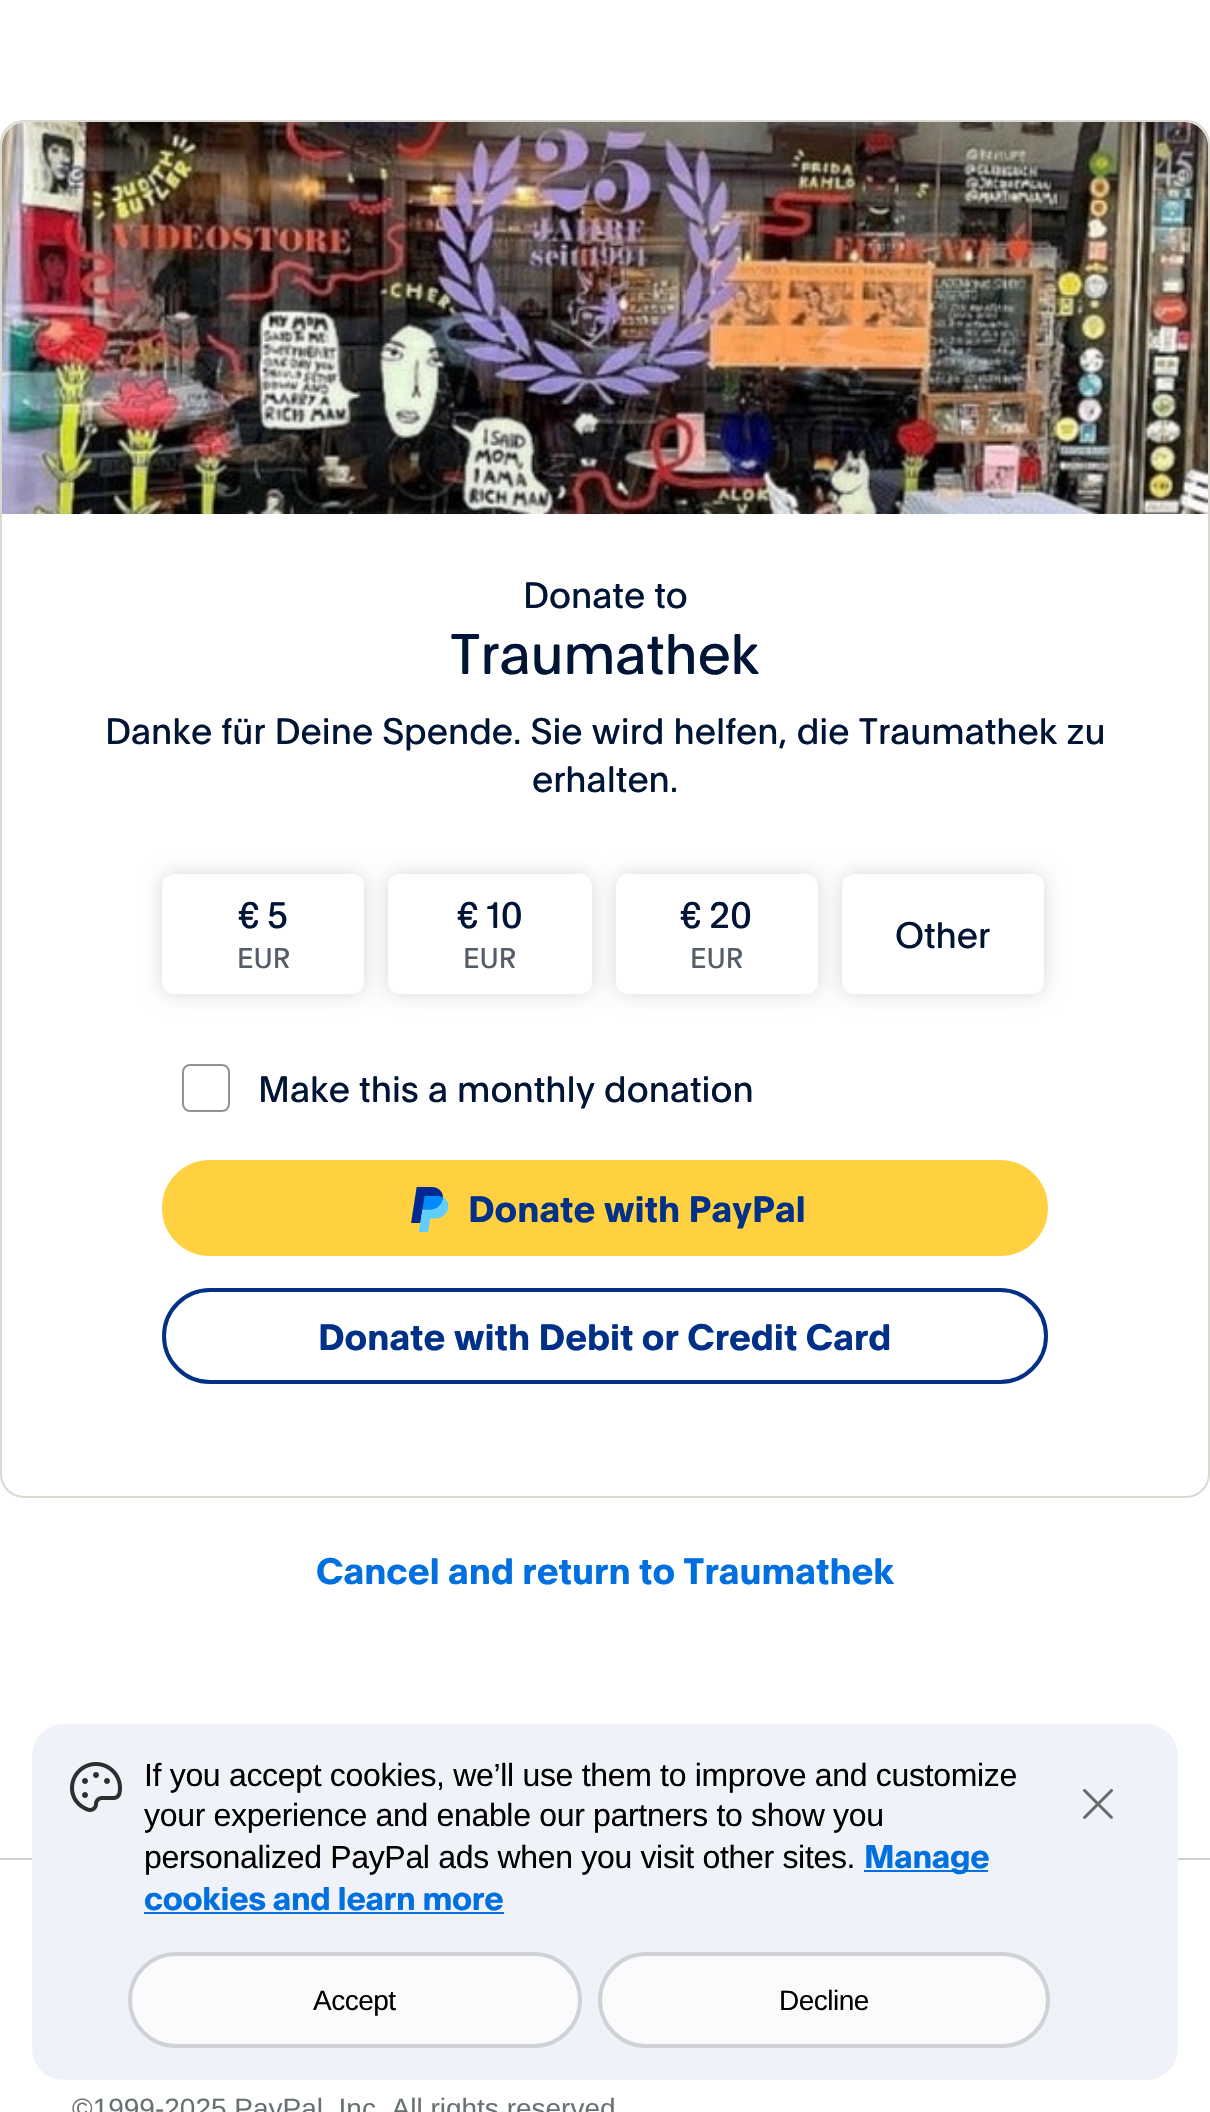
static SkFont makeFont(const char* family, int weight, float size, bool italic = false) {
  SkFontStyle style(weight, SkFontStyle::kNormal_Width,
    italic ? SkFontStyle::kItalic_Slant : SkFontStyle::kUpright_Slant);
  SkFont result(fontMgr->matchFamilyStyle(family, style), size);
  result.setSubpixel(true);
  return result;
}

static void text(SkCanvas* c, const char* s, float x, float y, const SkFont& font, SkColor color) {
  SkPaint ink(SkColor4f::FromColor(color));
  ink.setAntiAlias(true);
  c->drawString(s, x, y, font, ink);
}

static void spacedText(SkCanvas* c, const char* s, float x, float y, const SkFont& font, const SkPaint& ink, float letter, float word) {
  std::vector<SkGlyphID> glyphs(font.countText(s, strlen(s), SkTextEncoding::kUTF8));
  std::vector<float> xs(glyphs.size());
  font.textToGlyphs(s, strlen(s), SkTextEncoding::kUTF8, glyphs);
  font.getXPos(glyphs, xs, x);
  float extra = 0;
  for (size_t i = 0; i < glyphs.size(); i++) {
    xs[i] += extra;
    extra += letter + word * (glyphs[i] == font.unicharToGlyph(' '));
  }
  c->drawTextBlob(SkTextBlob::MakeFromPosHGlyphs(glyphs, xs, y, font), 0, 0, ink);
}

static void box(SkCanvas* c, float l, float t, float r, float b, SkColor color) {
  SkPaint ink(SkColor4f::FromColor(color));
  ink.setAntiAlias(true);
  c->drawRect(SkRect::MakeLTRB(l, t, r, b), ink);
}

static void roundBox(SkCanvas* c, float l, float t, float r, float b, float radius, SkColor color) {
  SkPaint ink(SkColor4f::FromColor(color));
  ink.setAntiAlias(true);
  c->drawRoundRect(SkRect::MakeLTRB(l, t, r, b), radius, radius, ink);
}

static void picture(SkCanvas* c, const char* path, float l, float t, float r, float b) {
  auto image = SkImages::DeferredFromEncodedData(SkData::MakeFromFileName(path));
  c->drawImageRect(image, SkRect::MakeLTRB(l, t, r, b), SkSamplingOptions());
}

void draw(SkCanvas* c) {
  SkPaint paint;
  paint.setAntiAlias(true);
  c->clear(0xffffffff);
  paint.setStyle(SkPaint::kStroke_Style);
  paint.setStrokeWidth(2);
  paint.setColor(0xffdbd8d0);
  c->drawRoundRect(SkRect::MakeLTRB(1, 121, 1209, 1497), 23, 23, paint);
  picture(c, "img_01.png", 2, 122, 1208, 514);
  SkFont face1 = makeFont("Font", 400, 36);
  text(c, "Donate to", 523, 608, face1, 0xff001435);
  SkFont face2 = makeFont("Font", 400, 56);
  text(c, "Traumathek", 450, 674, face2, 0xff001435);
  text(c, "Danke für Deine Spende. Sie wird helfen, die Traumathek zu", 105, 744, face1, 0xff001435);
  text(c, "erhalten.", 532, 792, face1, 0xff001435);
  paint.setStyle(SkPaint::kFill_Style);
  paint.setColor(0x26000000);
  paint.setMaskFilter(SkMaskFilter::MakeBlur(kNormal_SkBlurStyle, 10));
  c->drawRoundRect(SkRect::MakeLTRB(162, 874, 364, 994), 12, 12, paint);
  paint.setMaskFilter(nullptr);
  paint.setColor(0xffffffff);
  c->drawRoundRect(SkRect::MakeLTRB(163, 875, 363, 993), 11, 11, paint);
  paint.setStyle(SkPaint::kStroke_Style);
  c->drawRoundRect(SkRect::MakeLTRB(163, 875, 363, 993), 11, 11, paint);
  text(c, "€ 5", 238, 928, face1, 0xff001435);
  SkFont face3 = makeFont("Font", 400, 28);
  text(c, "EUR", 237, 968, face3, 0xff545d68);
  paint.setStyle(SkPaint::kFill_Style);
  paint.setColor(0x26000000);
  paint.setMaskFilter(SkMaskFilter::MakeBlur(kNormal_SkBlurStyle, 10));
  c->drawRoundRect(SkRect::MakeLTRB(388, 874, 592, 994), 12, 12, paint);
  paint.setMaskFilter(nullptr);
  paint.setColor(0xffffffff);
  c->drawRoundRect(SkRect::MakeLTRB(389, 875, 591, 993), 11, 11, paint);
  paint.setStyle(SkPaint::kStroke_Style);
  c->drawRoundRect(SkRect::MakeLTRB(389, 875, 591, 993), 11, 11, paint);
  text(c, "€ 10", 457, 928, face1, 0xff001435);
  text(c, "EUR", 463, 968, face3, 0xff545d68);
  paint.setStyle(SkPaint::kFill_Style);
  paint.setColor(0x26000000);
  paint.setMaskFilter(SkMaskFilter::MakeBlur(kNormal_SkBlurStyle, 10));
  c->drawRoundRect(SkRect::MakeLTRB(616, 874, 818, 994), 12, 12, paint);
  paint.setMaskFilter(nullptr);
  paint.setColor(0xffffffff);
  c->drawRoundRect(SkRect::MakeLTRB(617, 875, 817, 993), 11, 11, paint);
  paint.setStyle(SkPaint::kStroke_Style);
  c->drawRoundRect(SkRect::MakeLTRB(617, 875, 817, 993), 11, 11, paint);
  text(c, "€ 20", 680, 928, face1, 0xff001435);
  text(c, "EUR", 690, 968, face3, 0xff545d68);
  paint.setStyle(SkPaint::kFill_Style);
  paint.setColor(0x26000000);
  paint.setMaskFilter(SkMaskFilter::MakeBlur(kNormal_SkBlurStyle, 10));
  c->drawRoundRect(SkRect::MakeLTRB(842, 874, 1044, 994), 12, 12, paint);
  paint.setMaskFilter(nullptr);
  paint.setColor(0xffffffff);
  c->drawRoundRect(SkRect::MakeLTRB(843, 875, 1043, 993), 11, 11, paint);
  paint.setStyle(SkPaint::kStroke_Style);
  c->drawRoundRect(SkRect::MakeLTRB(843, 875, 1043, 993), 11, 11, paint);
  text(c, "Other", 895, 948, face1, 0xff001435);
  paint.setColor(0xff929496);
  c->drawRoundRect(SkRect::MakeLTRB(183, 1065, 229, 1111), 7, 7, paint);
  text(c, "Make this a monthly donation", 258, 1102, face1, 0xff001435);
  paint.setStyle(SkPaint::kFill_Style);
  paint.setColor(0xffffd140);
  c->drawRoundRect(SkRect::MakeLTRB(164, 1162, 1046, 1254), 46, 46, paint);
  paint.setStyle(SkPaint::kStroke_Style);
  paint.setStrokeWidth(4);
  c->drawRoundRect(SkRect::MakeLTRB(164, 1162, 1046, 1254), 46, 46, paint);
  picture(c, "img_02.png", 411, 1187, 449, 1232);
  SkFont face4 = makeFont("Font", 700, 36);
  text(c, "Donate with PayPal", 468, 1222, face4, 0xff003087);
  paint.setColor(0xff003087);
  c->drawRoundRect(SkRect::MakeLTRB(164, 1290, 1046, 1382), 46, 46, paint);
  text(c, "Donate with Debit or Credit Card", 318, 1350, face4, 0xff003087);
  text(c, "Cancel and return to Traumathek", 316, 1584, face4, 0xff0070e0);
  box(c, 0, 1858, 1210, 1860, 0xffcbd2d6);
  SkFont face5 = makeFont("Liberation Sans", 400, 28);
  text(c, "©1999-2025 PayPal, Inc. All rights reserved", 72, 2118, face5, 0xff687173);
  roundBox(c, 32, 1724, 1178, 2080, 32, 0xfff0f2f9);
  picture(c, "img_03.png", 70, 1762, 122, 1812);
  SkFont face6 = makeFont("Liberation Sans", 400, 32);
  paint.setStyle(SkPaint::kFill_Style);
  paint.setColor(0xff000000);
  spacedText(c, "If you accept cookies, we’ll use them to improve and customize", 144, 1786, face6, paint, -0.32f, 0);
  spacedText(c, "your experience and enable our partners to show you", 144, 1826, face6, paint, -0.32f, 0);
  spacedText(c, "personalized PayPal ads when you visit other sites.", 144, 1868, face6, paint, -0.32f, 0);
  box(c, 864, 1870, 988, 1872, 0xff0070e0);
  SkFont face7 = makeFont("Font", 700, 32);
  paint.setColor(0xff0070e0);
  spacedText(c, "Manage", 864, 1868, face7, paint, -0.32f, 0);
  spacedText(c, "cookies and learn more", 144, 1910, face7, paint, -0.32f, 0);
  box(c, 144, 1912, 504, 1914, 0xff0070e0);
  paint.setColor(0xfffbfbfd);
  c->drawRoundRect(SkRect::MakeLTRB(130, 1954, 580, 2046), 46, 46, paint);
  paint.setStyle(SkPaint::kStroke_Style);
  paint.setColor(0xffcfd3d8);
  c->drawRoundRect(SkRect::MakeLTRB(130, 1954, 580, 2046), 46, 46, paint);
  paint.setStyle(SkPaint::kFill_Style);
  paint.setColor(0xff000000);
  spacedText(c, "Accept", 313, 2010, face5, paint, -0.5f, 0);
  paint.setColor(0xfffbfbfd);
  c->drawRoundRect(SkRect::MakeLTRB(600, 1954, 1048, 2046), 46, 46, paint);
  paint.setStyle(SkPaint::kStroke_Style);
  paint.setColor(0xffcfd3d8);
  c->drawRoundRect(SkRect::MakeLTRB(600, 1954, 1048, 2046), 46, 46, paint);
  paint.setStyle(SkPaint::kFill_Style);
  paint.setColor(0xff000000);
  spacedText(c, "Decline", 779, 2010, face5, paint, -0.5f, 0);
  picture(c, "img_04.png", 1083, 1789, 1113, 1819);
}
